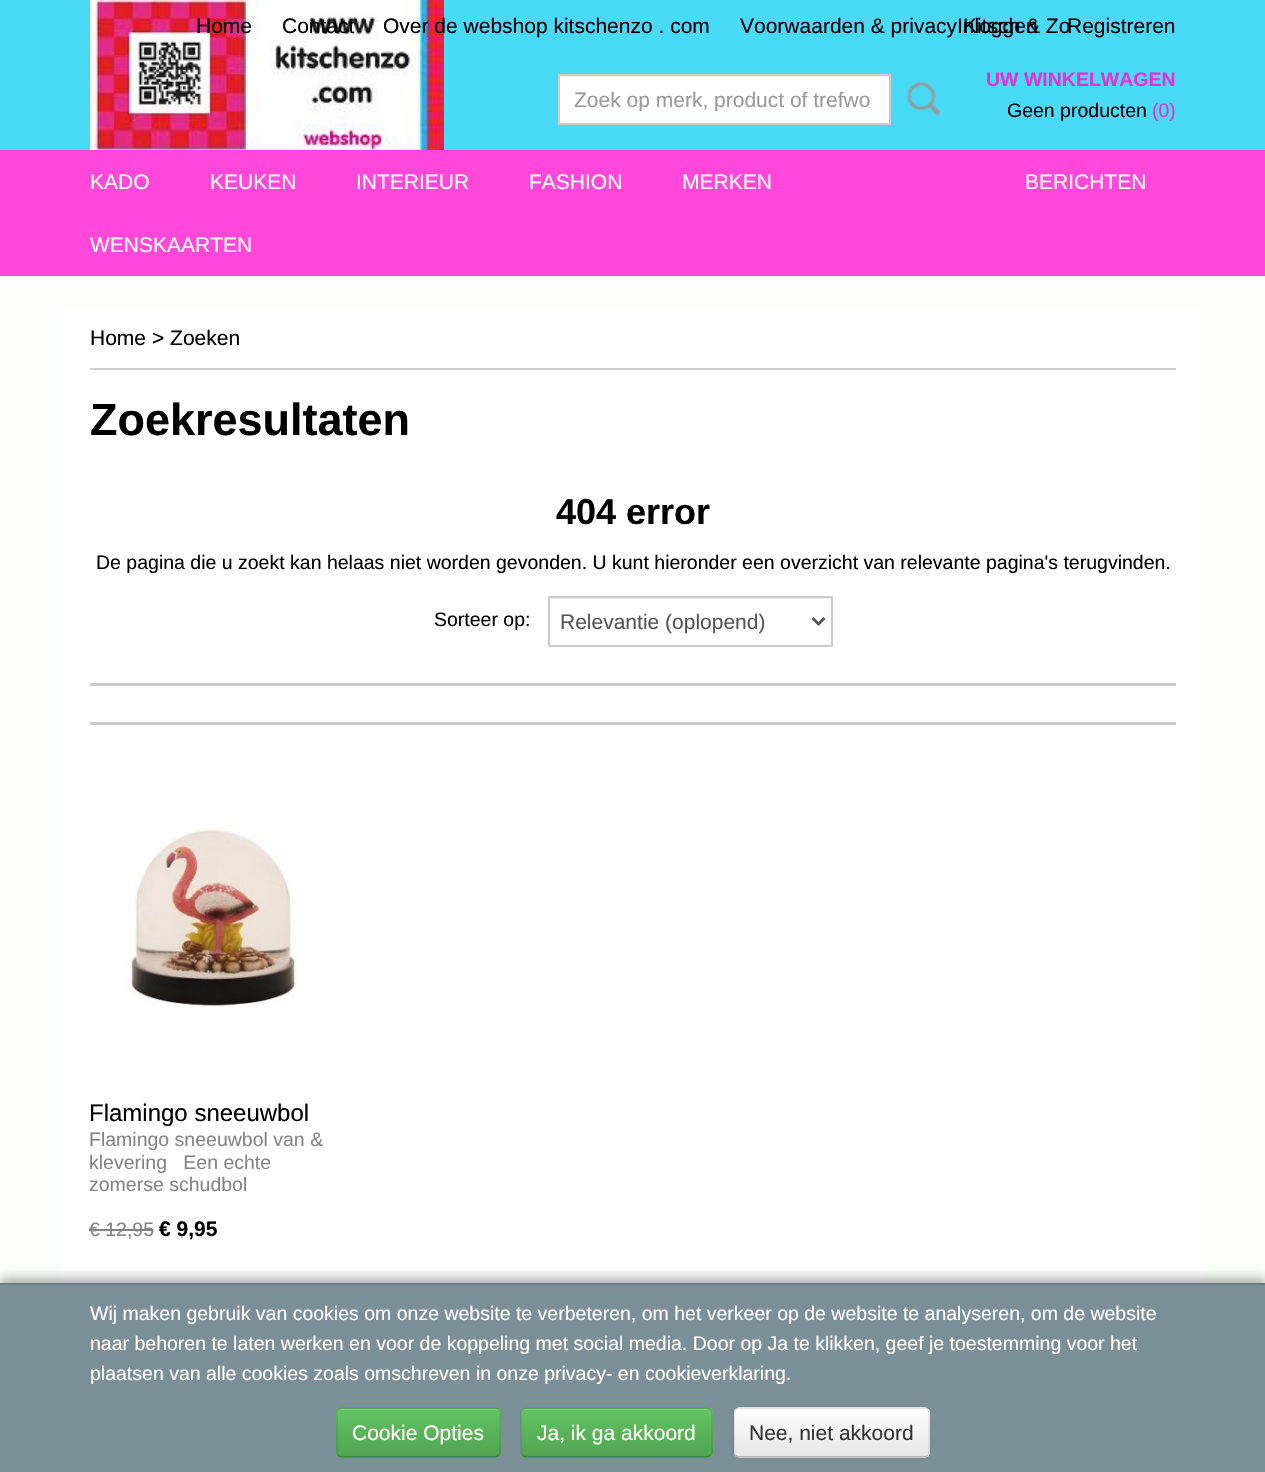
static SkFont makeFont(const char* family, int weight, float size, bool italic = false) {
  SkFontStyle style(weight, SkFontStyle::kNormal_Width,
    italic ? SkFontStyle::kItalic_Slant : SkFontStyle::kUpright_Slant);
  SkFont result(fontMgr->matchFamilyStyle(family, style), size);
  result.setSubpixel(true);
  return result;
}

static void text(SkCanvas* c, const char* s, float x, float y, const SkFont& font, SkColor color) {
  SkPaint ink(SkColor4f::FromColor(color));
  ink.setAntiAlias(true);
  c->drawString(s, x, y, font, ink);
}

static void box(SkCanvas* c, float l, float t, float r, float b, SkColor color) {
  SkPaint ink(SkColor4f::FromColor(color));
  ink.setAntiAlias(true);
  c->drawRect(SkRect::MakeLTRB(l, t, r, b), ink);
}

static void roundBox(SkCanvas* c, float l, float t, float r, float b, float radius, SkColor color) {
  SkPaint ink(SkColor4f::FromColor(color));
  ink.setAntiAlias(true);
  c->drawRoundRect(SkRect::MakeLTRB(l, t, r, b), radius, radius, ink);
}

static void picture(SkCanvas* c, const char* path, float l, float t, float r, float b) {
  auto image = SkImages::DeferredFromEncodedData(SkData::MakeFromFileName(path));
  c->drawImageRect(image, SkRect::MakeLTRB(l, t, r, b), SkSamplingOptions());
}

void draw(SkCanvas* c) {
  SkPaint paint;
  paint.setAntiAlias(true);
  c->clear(0xfffdfffa);
  box(c, 0, 0, 1265, 150, 0xff48daf7);
  picture(c, "img_01.png", 90, 0, 444, 150);
  SkFont face1 = makeFont("Liberation Sans", 400, 21);
  text(c, "Home", 196, 33, face1, 0xff000000);
  text(c, "Contact", 282, 33, face1, 0xff000000);
  text(c, "Over de webshop kitschenzo . com", 383, 33, face1, 0xff000000);
  text(c, "Voorwaarden & privacy Kitsch & Zo", 740, 33, face1, 0xff000000);
  text(c, "Inloggen", 957, 33, face1, 0xff000000);
  text(c, "Registreren", 1067, 33, face1, 0xff000000);
  SkFont face2 = makeFont("Liberation Sans", 700, 19.5f);
  text(c, "UW WINKELWAGEN", 986, 86, face2, 0xffe630d4);
  SkFont face3 = makeFont("Liberation Sans", 400, 19.5f);
  text(c, "Geen producten", 1007, 117, face3, 0xff000000);
  text(c, "(0)", 1152, 117, face3, 0xffe630c8);
  box(c, 560, 77, 889, 123, 0xffffffff);
  box(c, 560, 76, 890, 77, 0xffececec);
  paint.setStyle(SkPaint::kStroke_Style);
  paint.setStrokeWidth(2);
  paint.setColor(0xffcccccc);
  c->drawRect(SkRect::MakeLTRB(559, 75, 890, 124), paint);
  c->save();
  c->clipRect(SkRect::MakeLTRB(575, 87, 875, 111));
  text(c, "Zoek op merk, product of trefwo", 574, 107, face1, 0xff999999);
  c->restore();
  picture(c, "img_02.png", 907, 82, 941, 116);
  box(c, 0, 150, 1265, 276, 0xffff47da);
  text(c, "KADO", 90, 189, face1, 0xfffffcfa);
  text(c, "KEUKEN", 210, 189, face1, 0xfffffcfa);
  text(c, "INTERIEUR", 356, 189, face1, 0xfffffcfa);
  text(c, "FASHION", 529, 189, face1, 0xfffffcfa);
  text(c, "MERKEN", 682, 189, face1, 0xfffffcfa);
  text(c, "WENSKAARTEN", 90, 252, face1, 0xfffffcfa);
  text(c, "BERICHTEN", 1025, 189, face1, 0xfffffcfa);
  box(c, 60, 309, 1206, 1283, 0xffffffff);
  box(c, 90, 368, 1176, 370, 0xffcccccc);
  text(c, "Home", 90, 345, face1, 0xff000000);
  text(c, "> Zoeken", 152, 345, face1, 0xff000000);
  SkFont face4 = makeFont("Liberation Sans", 700, 45);
  text(c, "Zoekresultaten", 90, 435, face4, 0xff000000);
  SkFont face5 = makeFont("Liberation Sans", 700, 36);
  text(c, "404 error", 556, 524, face5, 0xff000000);
  text(c, "De pagina die u zoekt kan helaas niet worden gevonden. U kunt hieronder een overzicht van relevante pagina's terugvinden.", 96, 569, face3, 0xff000000);
  text(c, "Sorteer op:", 434, 626, face3, 0xff000000);
  box(c, 549, 598, 831, 599, 0xffececec);
  c->drawRect(SkRect::MakeLTRB(549, 597, 832, 646), paint);
  paint.setStrokeWidth(3);
  paint.setColor(0xff555555);
  c->drawPath(SkPathBuilder().moveTo(812.5f, 618).lineTo(818.5f, 624).lineTo(824.5f, 618).detach(), paint);
  text(c, "Relevantie (oplopend)", 560, 629, face1, 0xff555555);
  box(c, 90, 683, 1176, 686, 0xffcccccc);
  box(c, 90, 722, 1176, 725, 0xffcccccc);
  picture(c, "img_03.png", 127, 828, 298, 1006);
  SkFont face6 = makeFont("Liberation Sans", 400, 24);
  text(c, "Flamingo sneeuwbol", 89, 1121, face6, 0xff000000);
  text(c, "Flamingo sneeuwbol van &", 89, 1146, face3, 0xff848484);
  text(c, "klevering   Een echte", 89, 1169, face3, 0xff848484);
  text(c, "zomerse schudbol", 89, 1191, face3, 0xff848484);
  text(c, "€ 12,95", 89, 1236, face3, 0xff848484);
  box(c, 89, 1229, 153, 1231, 0xff828181);
  SkFont face7 = makeFont("Liberation Sans", 700, 21);
  text(c, "€ 9,95", 159, 1236, face7, 0xff000000);
  paint.setStyle(SkPaint::kFill_Style);
  paint.setColor(0x4d000000);
  paint.setMaskFilter(SkMaskFilter::MakeBlur(kNormal_SkBlurStyle, 5));
  c->drawRect(SkRect::MakeLTRB(0, 1278, 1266, 1469), paint);
  paint.setMaskFilter(nullptr);
  box(c, 0, 1285, 1265, 1472, 0xff7a8f98);
  box(c, 0, 1283, 1265, 1285, 0xff697e87);
  text(c, "Wij maken gebruik van cookies om onze website te verbeteren, om het verkeer op de website te analyseren, om de website", 90, 1320, face3, 0xfffffcfa);
  text(c, "naar behoren te laten werken en voor de koppeling met social media. Door op Ja te klikken, geef je toestemming voor het", 90, 1350, face3, 0xfffffcfa);
  text(c, "plaatsen van alle cookies zoals omschreven in onze privacy- en cookieverklaring.", 90, 1380, face3, 0xfffffcfa);
  roundBox(c, 336, 1407, 501, 1458, 6, 0xff5bb75b);
  c->save();
  c->clipPath(SkPathBuilder().moveTo(342, 1407).lineTo(495, 1407).cubicTo(498.5f, 1407, 501, 1409.5f, 501, 1413).lineTo(501, 1452).cubicTo(501, 1455.5f, 498.5f, 1458, 495, 1458).lineTo(342, 1458).cubicTo(338.5f, 1458, 336, 1455.5f, 336, 1452).lineTo(336, 1413).cubicTo(336, 1409.5f, 338.5f, 1407, 342, 1407).close().detach(), true);
  {
    const SkColor colors[] = {0xff62c462, 0xff51a351};
    const float stops[] = {0, 1};
    const SkPoint ends[] = {{419, 1409}, {419, 1457}};
    paint.setShader(SkGradientShader::MakeLinear(ends, colors, stops, 2, SkTileMode::kClamp));
    paint.setAlpha(255);
  }
  c->drawRect(SkRect::MakeLTRB(336, 1409, 501, 1457), paint);
  c->restore();
  paint.setShader(nullptr);
  paint.setColor(0xff81d081);
  c->drawPath(SkPathBuilder().moveTo(342, 1410).lineTo(495, 1410).cubicTo(497, 1410, 500, 1412, 500, 1414).cubicTo(500, 1411, 498, 1409, 495, 1409).lineTo(343, 1409).cubicTo(340, 1409, 338, 1411, 338, 1414).cubicTo(338, 1412, 340, 1410, 342, 1410).close().detach(), paint);
  paint.setStyle(SkPaint::kStroke_Style);
  paint.setStrokeWidth(1.5f);
  paint.setColor(0x40000000);
  c->drawPath(SkPathBuilder().moveTo(498.5f, 1455.5f).cubicTo(497.5f, 1456.5f, 496.5f, 1457, 495, 1457).lineTo(342, 1457).cubicTo(340.5f, 1457, 339.5f, 1456.5f, 338.5f, 1455.5f).detach(), paint);
  paint.setColor(0x1a000000);
  c->drawPath(SkPathBuilder().moveTo(338.5f, 1455.5f).cubicTo(337.5f, 1454.5f, 337, 1453.5f, 337, 1452).lineTo(337, 1413).cubicTo(337, 1411.5f, 337.5f, 1410.5f, 338.5f, 1409.5f).cubicTo(339.5f, 1408.5f, 340.5f, 1408, 342, 1408).lineTo(495, 1408).cubicTo(496.5f, 1408, 497.5f, 1408.5f, 498.5f, 1409.5f).cubicTo(499.5f, 1410.5f, 500, 1411.5f, 500, 1413).lineTo(500, 1452).cubicTo(500, 1453.5f, 499.5f, 1454.5f, 498.5f, 1455.5f).detach(), paint);
  text(c, "Cookie Opties", 352, 1440, face1, 0xfffffcfa);
  roundBox(c, 521, 1407, 713, 1458, 6, 0xff5bb75b);
  c->save();
  c->clipPath(SkPathBuilder().moveTo(527, 1407).lineTo(707, 1407).cubicTo(710.5f, 1407, 713, 1409.5f, 713, 1413).lineTo(713, 1452).cubicTo(713, 1455.5f, 710.5f, 1458, 707, 1458).lineTo(527, 1458).cubicTo(523.5f, 1458, 521, 1455.5f, 521, 1452).lineTo(521, 1413).cubicTo(521, 1409.5f, 523.5f, 1407, 527, 1407).close().detach(), true);
  paint.setStyle(SkPaint::kFill_Style);
  {
    const SkColor colors[] = {0xff62c462, 0xff51a351};
    const float stops[] = {0, 1};
    const SkPoint ends[] = {{617, 1409}, {617, 1457}};
    paint.setShader(SkGradientShader::MakeLinear(ends, colors, stops, 2, SkTileMode::kClamp));
    paint.setAlpha(255);
  }
  c->drawRect(SkRect::MakeLTRB(521, 1409, 713, 1457), paint);
  c->restore();
  paint.setShader(nullptr);
  paint.setColor(0xff81d081);
  c->drawPath(SkPathBuilder().moveTo(526, 1410).lineTo(706, 1410).cubicTo(709, 1410, 711, 1412, 711, 1414).cubicTo(711, 1411, 709, 1409, 706, 1409).lineTo(527, 1409).cubicTo(524, 1409, 522, 1411, 522, 1414).cubicTo(522, 1412, 524, 1410, 526, 1410).close().detach(), paint);
  paint.setStyle(SkPaint::kStroke_Style);
  paint.setColor(0x40000000);
  c->drawPath(SkPathBuilder().moveTo(710, 1455.5f).cubicTo(709, 1456.5f, 708, 1457, 706.5f, 1457).lineTo(526.5f, 1457).cubicTo(525, 1457, 524, 1456.5f, 523, 1455.5f).detach(), paint);
  paint.setColor(0x1a000000);
  c->drawPath(SkPathBuilder().moveTo(523, 1455.5f).cubicTo(522, 1454.5f, 521, 1453.5f, 521, 1452).lineTo(521, 1413).cubicTo(521, 1411.5f, 522, 1410.5f, 523, 1409.5f).cubicTo(524, 1408.5f, 525, 1408, 526.5f, 1408).lineTo(706.5f, 1408).cubicTo(708, 1408, 709, 1408.5f, 710, 1409.5f).cubicTo(711, 1410.5f, 712, 1411.5f, 712, 1413).lineTo(712, 1452).cubicTo(712, 1453.5f, 711, 1454.5f, 710, 1455.5f).detach(), paint);
  text(c, "Ja, ik ga akkoord", 537, 1440, face1, 0xfffffcfa);
  roundBox(c, 734, 1407, 930, 1458, 6, 0xfff5f5f5);
  c->save();
  c->clipPath(SkPathBuilder().moveTo(740, 1407).lineTo(924, 1407).cubicTo(927.5f, 1407, 930, 1409.5f, 930, 1413).lineTo(930, 1452).cubicTo(930, 1455.5f, 927.5f, 1458, 924, 1458).lineTo(740, 1458).cubicTo(736.5f, 1458, 734, 1455.5f, 734, 1452).lineTo(734, 1413).cubicTo(734, 1409.5f, 736.5f, 1407, 740, 1407).close().detach(), true);
  paint.setStyle(SkPaint::kFill_Style);
  {
    const SkColor colors[] = {0xffffffff, 0xffe6e6e6};
    const float stops[] = {0, 1};
    const SkPoint ends[] = {{832, 1409}, {832, 1457}};
    paint.setShader(SkGradientShader::MakeLinear(ends, colors, stops, 2, SkTileMode::kClamp));
    paint.setAlpha(255);
  }
  c->drawRect(SkRect::MakeLTRB(734, 1409, 930, 1457), paint);
  c->restore();
  paint.setShader(nullptr);
  paint.setColor(0x33ffffff);
  c->drawPath(SkPathBuilder().moveTo(740, 1410).lineTo(924, 1410).cubicTo(926, 1410, 928, 1412, 928, 1414).lineTo(928, 1455).cubicTo(929, 1454, 929, 1453, 929, 1452).lineTo(929, 1414).cubicTo(929, 1411, 927, 1409, 924, 1409).lineTo(740, 1409).cubicTo(737, 1409, 735, 1411, 735, 1414).cubicTo(735, 1412, 737, 1410, 740, 1410).close().detach(), paint);
  paint.setStyle(SkPaint::kStroke_Style);
  paint.setColor(0x40000000);
  c->drawPath(SkPathBuilder().moveTo(927.5f, 1455.5f).cubicTo(926.5f, 1456.5f, 925.5f, 1457, 924, 1457).lineTo(739.5f, 1457).cubicTo(738, 1457, 737, 1456.5f, 736, 1455.5f).detach(), paint);
  paint.setColor(0x1a000000);
  c->drawPath(SkPathBuilder().moveTo(736, 1455.5f).cubicTo(735, 1454.5f, 734, 1453.5f, 734, 1452).lineTo(734, 1413).cubicTo(734, 1411.5f, 735, 1410.5f, 736, 1409.5f).cubicTo(737, 1408.5f, 738, 1408, 739.5f, 1408).lineTo(924, 1408).cubicTo(925.5f, 1408, 926.5f, 1408.5f, 927.5f, 1409.5f).cubicTo(928.5f, 1410.5f, 929, 1411.5f, 929, 1413).lineTo(929, 1452).cubicTo(929, 1453.5f, 928.5f, 1454.5f, 927.5f, 1455.5f).detach(), paint);
  text(c, "Nee, niet akkoord", 749, 1440, face1, 0xff333333);
}
